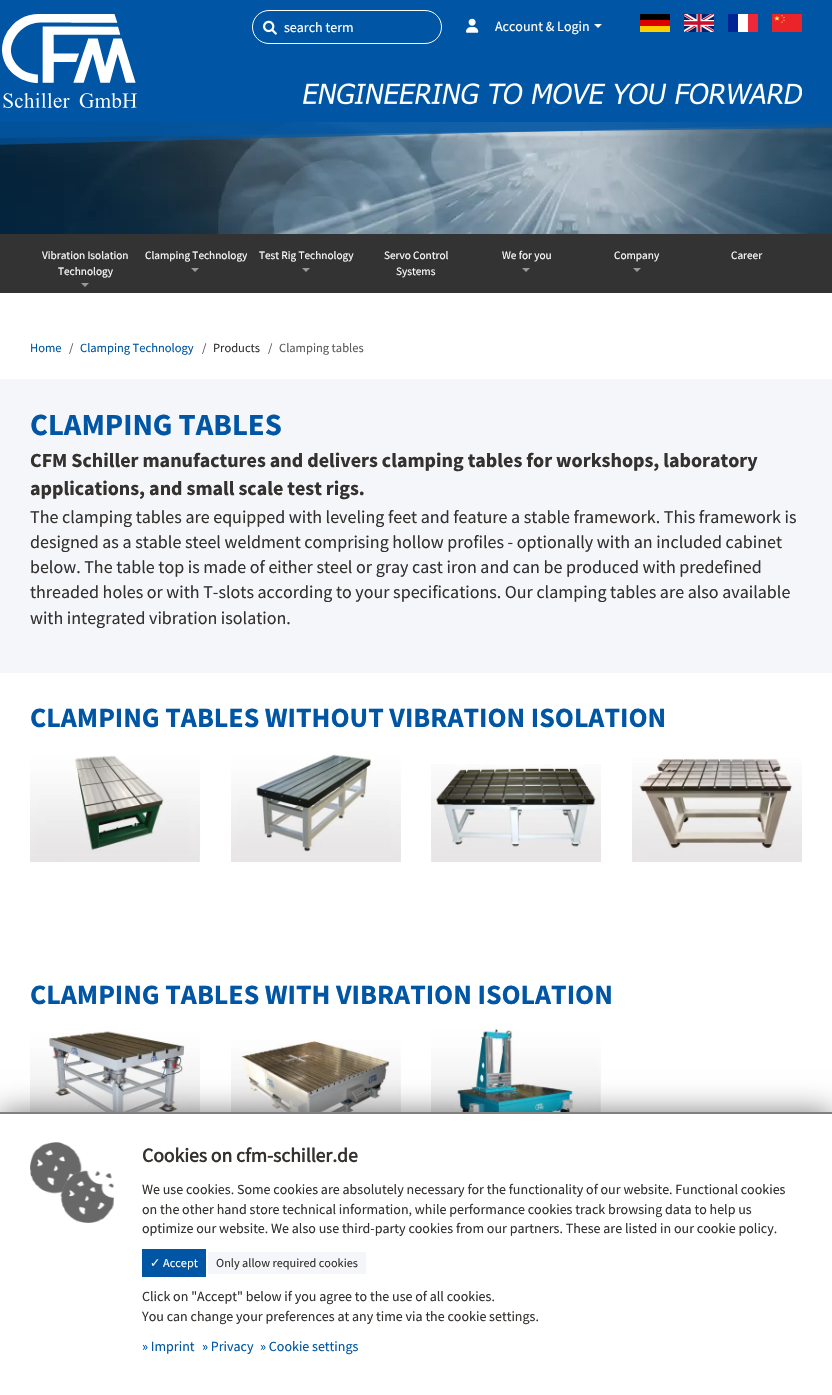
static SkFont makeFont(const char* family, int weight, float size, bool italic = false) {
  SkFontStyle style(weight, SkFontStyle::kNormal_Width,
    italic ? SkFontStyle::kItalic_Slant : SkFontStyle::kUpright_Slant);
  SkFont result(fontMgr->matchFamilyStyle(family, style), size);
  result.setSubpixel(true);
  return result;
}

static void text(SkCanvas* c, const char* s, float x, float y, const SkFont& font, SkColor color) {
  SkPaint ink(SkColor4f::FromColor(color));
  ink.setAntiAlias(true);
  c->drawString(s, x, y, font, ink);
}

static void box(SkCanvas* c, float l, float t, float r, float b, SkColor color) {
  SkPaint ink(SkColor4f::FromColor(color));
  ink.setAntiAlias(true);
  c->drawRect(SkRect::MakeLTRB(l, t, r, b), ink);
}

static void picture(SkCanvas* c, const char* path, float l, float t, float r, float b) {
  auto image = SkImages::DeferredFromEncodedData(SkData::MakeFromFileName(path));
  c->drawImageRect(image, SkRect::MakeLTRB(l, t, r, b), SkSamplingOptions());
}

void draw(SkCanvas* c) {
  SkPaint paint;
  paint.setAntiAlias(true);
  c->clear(0xffffffff);
  picture(c, "img_09.png", 0, 122, 832, 234);
  paint.setColor(0xb30056a4);
  c->drawPath(SkPathBuilder().moveTo(0, 114).lineTo(0, 138).lineTo(832, 128).lineTo(832, 114).close().detach(), paint);
  c->drawPath(SkPathBuilder().moveTo(-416, 114).lineTo(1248, 114).lineTo(-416, 155).close().detach(), paint);
  box(c, 0, 0, 832, 122, 0xff0056a4);
  picture(c, "img_01.png", 2, 14, 137, 108);
  picture(c, "img_02.png", 303, 83, 802, 105);
  paint.setStyle(SkPaint::kStroke_Style);
  paint.setStrokeWidth(1);
  paint.setColor(0xffffffff);
  c->drawRoundRect(SkRect::MakeLTRB(252.5f, 10.5f, 441.5f, 43.5f), 16.5f, 16.5f, paint);
  picture(c, "img_03.png", 263, 20, 277, 35);
  SkFont face1 = makeFont("Source Sans Pro", 400, 14);
  text(c, "search term", 284, 32, face1, 0xffffffff);
  picture(c, "img_04.png", 466, 18, 479, 33);
  text(c, "Account & Login", 495, 31, face1, 0xffffffff);
  paint.setStyle(SkPaint::kFill_Style);
  c->drawPath(SkPathBuilder().moveTo(594, 24).lineTo(602, 24).lineTo(598, 28).close().detach(), paint);
  picture(c, "img_05.png", 640, 14, 670, 32);
  picture(c, "img_06.png", 684, 14, 714, 32);
  picture(c, "img_07.png", 728, 14, 758, 32);
  picture(c, "img_08.png", 772, 14, 802, 32);
  box(c, 0, 234, 832, 293, 0xff333333);
  SkFont face2 = makeFont("Source Sans Pro", 400, 11.25f);
  text(c, "Vibration Isolation", 42, 259, face2, 0xffffffff);
  text(c, "Technology", 58, 275, face2, 0xffffffff);
  paint.setColor(0xff999999);
  c->drawPath(SkPathBuilder().moveTo(81, 283).lineTo(89, 283).lineTo(85, 287).close().detach(), paint);
  text(c, "Clamping Technology", 145, 259, face2, 0xffffffff);
  c->drawPath(SkPathBuilder().moveTo(191, 268).lineTo(199, 268).lineTo(195, 272).close().detach(), paint);
  text(c, "Test Rig Technology", 259, 259, face2, 0xffffffff);
  c->drawPath(SkPathBuilder().moveTo(302, 268).lineTo(310, 268).lineTo(306, 272).close().detach(), paint);
  text(c, "Servo Control", 384, 259, face2, 0xffffffff);
  text(c, "Systems", 396, 275, face2, 0xffffffff);
  text(c, "We for you", 502, 259, face2, 0xffffffff);
  c->drawPath(SkPathBuilder().moveTo(522, 268).lineTo(530, 268).lineTo(526, 272).close().detach(), paint);
  text(c, "Company", 614, 259, face2, 0xffffffff);
  c->drawPath(SkPathBuilder().moveTo(633, 268).lineTo(641, 268).lineTo(637, 272).close().detach(), paint);
  text(c, "Career", 731, 259, face2, 0xffffffff);
  SkFont face3 = makeFont("Source Sans Pro", 400, 12.5f);
  text(c, "Home", 30, 352, face3, 0xff0056a4);
  text(c, "/", 69, 352, face3, 0xff5d5a59);
  text(c, "Clamping Technology", 80, 352, face3, 0xff0056a4);
  text(c, "/", 202, 352, face3, 0xff5d5a59);
  text(c, "Products", 213, 352, face3, 0xff34312f);
  text(c, "/", 268, 352, face3, 0xff5d5a59);
  text(c, "Clamping tables", 279, 352, face3, 0xff5d5a59);
  box(c, 0, 379, 832, 673, 0xfff4f6fa);
  SkFont face4 = makeFont("Source Sans Pro", 700, 30.75f);
  text(c, "CLAMPING TABLES", 30, 435, face4, 0xff0056a4);
  SkFont face5 = makeFont("Source Sans Pro", 700, 20);
  text(c, "CFM Schiller manufactures and delivers clamping tables for workshops, laboratory", 30, 467, face5, 0xff34312f);
  text(c, "applications, and small scale test rigs.", 30, 495, face5, 0xff34312f);
  SkFont face6 = makeFont("Source Sans Pro", 400, 18);
  text(c, "The clamping tables are equipped with leveling feet and feature a stable framework. This framework is", 30, 523, face6, 0xff34312f);
  text(c, "designed as a stable steel weldment comprising hollow profiles - optionally with an included cabinet", 30, 548, face6, 0xff34312f);
  text(c, "below. The table top is made of either steel or gray cast iron and can be produced with predefined", 30, 573, face6, 0xff34312f);
  text(c, "threaded holes or with T-slots according to your specifications. Our clamping tables are also available", 30, 598, face6, 0xff34312f);
  text(c, "with integrated vibration isolation.", 30, 624, face6, 0xff34312f);
  SkFont face7 = makeFont("Source Sans Pro", 700, 28);
  text(c, "CLAMPING TABLES WITHOUT VIBRATION ISOLATION", 30, 727, face7, 0xff0056a4);
  picture(c, "img_10.png", 30, 755, 200, 862);
  picture(c, "img_11.png", 231, 754, 401, 862);
  picture(c, "img_12.png", 431, 764, 601, 862);
  picture(c, "img_13.png", 632, 758, 802, 862);
  text(c, "CLAMPING TABLES WITH VIBRATION ISOLATION", 30, 1004, face7, 0xff0056a4);
  picture(c, "img_14.png", 30, 1031, 200, 1112);
  picture(c, "img_15.png", 231, 1040, 401, 1112);
  picture(c, "img_16.png", 431, 1028, 601, 1112);
  paint.setColor(0x80000000);
  paint.setMaskFilter(SkMaskFilter::MakeBlur(kNormal_SkBlurStyle, 14));
  c->drawRect(SkRect::MakeLTRB(0, 1112, 832, 1395), paint);
  paint.setMaskFilter(nullptr);
  box(c, 0, 1114, 832, 1395, 0xffffffff);
  box(c, 0, 1112, 832, 1114, 0xff808080);
  picture(c, "img_17.png", 30, 1142, 114, 1223);
  SkFont face8 = makeFont("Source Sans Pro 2", 700, 19.6f);
  text(c, "Cookies on cfm-schiller.de", 142, 1162, face8, 0xff34312f);
  text(c, "We use cookies. Some cookies are absolutely necessary for the functionality of our website. Functional cookies", 142, 1194, face1, 0xff34312f);
  text(c, "on the other hand store technical information, while performance cookies track browsing data to help us", 142, 1214, face1, 0xff34312f);
  text(c, "optimize our website. We also use third-party cookies from our partners. These are listed in our cookie policy.", 142, 1233, face1, 0xff34312f);
  box(c, 142, 1249, 206, 1277, 0xff0056a4);
  SkFont face9 = makeFont("DejaVu Sans", 400, 12.25f);
  text(c, "✓", 150, 1267, face9, 0xffffffff);
  SkFont face10 = makeFont("Source Sans Pro", 400, 12.25f);
  text(c, "Accept", 163, 1267, face10, 0xffffffff);
  box(c, 208, 1252, 366, 1274, 0xfff4f6fa);
  text(c, "Only allow required cookies", 216, 1267, face10, 0xff34312f);
  text(c, "Click on \"Accept\" below if you agree to the use of all cookies.", 142, 1301, face1, 0xff34312f);
  text(c, "You can change your preferences at any time via the cookie settings.", 142, 1321, face1, 0xff34312f);
  text(c, "» Imprint", 142, 1351, face1, 0xff0056a4);
  text(c, "» Privacy", 202, 1351, face1, 0xff0056a4);
  text(c, "» Cookie settings", 260, 1351, face1, 0xff0056a4);
}
